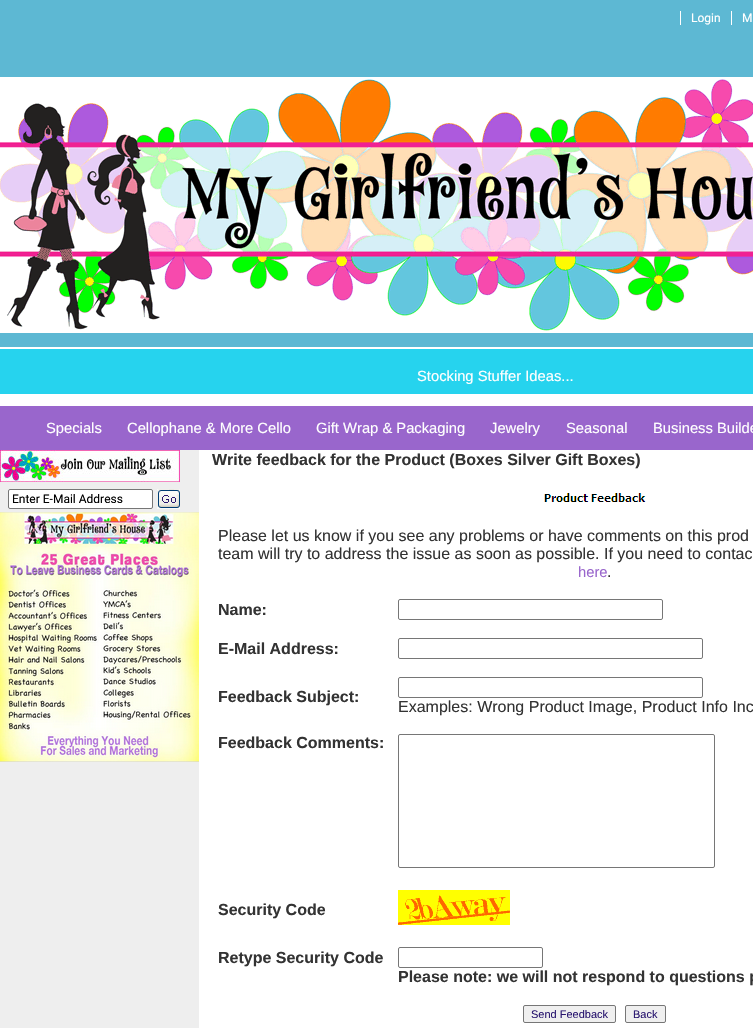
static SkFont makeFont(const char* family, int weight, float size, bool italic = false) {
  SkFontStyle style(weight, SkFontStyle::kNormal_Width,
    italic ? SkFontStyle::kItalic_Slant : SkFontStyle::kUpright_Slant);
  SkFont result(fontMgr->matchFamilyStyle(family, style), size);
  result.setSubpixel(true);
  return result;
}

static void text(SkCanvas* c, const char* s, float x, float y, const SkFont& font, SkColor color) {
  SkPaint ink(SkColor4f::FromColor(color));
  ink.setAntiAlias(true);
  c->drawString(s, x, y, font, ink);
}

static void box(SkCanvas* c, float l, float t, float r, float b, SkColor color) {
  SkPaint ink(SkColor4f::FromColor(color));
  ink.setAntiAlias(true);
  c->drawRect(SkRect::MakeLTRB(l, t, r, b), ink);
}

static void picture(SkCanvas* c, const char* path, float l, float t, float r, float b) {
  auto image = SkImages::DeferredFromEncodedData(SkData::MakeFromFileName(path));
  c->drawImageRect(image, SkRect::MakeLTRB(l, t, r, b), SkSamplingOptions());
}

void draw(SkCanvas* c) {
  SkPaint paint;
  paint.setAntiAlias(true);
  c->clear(0xffffffff);
  box(c, 0, 0, 753, 347, 0xff5db8d3);
  SkFont face1 = makeFont("Roboto", 400, 12);
  text(c, "Login", 691, 22, face1, 0xffffffff);
  box(c, 680, 11, 681, 25, 0xffffffff);
  box(c, 731, 11, 732, 25, 0xffffffff);
  text(c, "M", 742, 22, face1, 0xffffffff);
  picture(c, "img_01.png", 0, 77, 753, 333);
  box(c, 0, 349, 753, 394, 0xff26d3ee);
  SkFont face2 = makeFont("Liberation Sans", 400, 14.75f);
  text(c, "Stocking Stuffer Ideas...", 417, 381, face2, 0xffffffff);
  box(c, 0, 450, 199, 1028, 0xffeeeeee);
  box(c, 0, 406, 753, 450, 0xff9966cc);
  text(c, "Specials", 46, 433, face2, 0xffffffff);
  text(c, "Cellophane & More Cello", 127, 433, face2, 0xffffffff);
  text(c, "Gift Wrap & Packaging", 316, 433, face2, 0xffffffff);
  text(c, "Jewelry", 490, 433, face2, 0xffffffff);
  text(c, "Seasonal", 566, 433, face2, 0xffffffff);
  text(c, "Business Builde", 653, 433, face2, 0xffffffff);
  picture(c, "img_02.png", 0, 450, 180, 482);
  paint.setColor(0xffffffff);
  c->drawRoundRect(SkRect::MakeLTRB(8.5f, 489.5f, 152.5f, 508.5f), 1.5f, 1.5f, paint);
  paint.setStyle(SkPaint::kStroke_Style);
  paint.setStrokeWidth(1);
  paint.setColor(0xff767676);
  c->drawRoundRect(SkRect::MakeLTRB(8.5f, 489.5f, 152.5f, 508.5f), 1.5f, 1.5f, paint);
  text(c, "Enter E-Mail Address", 12, 503, face1, 0xff000000);
  picture(c, "img_03.png", 157, 489, 180, 509);
  picture(c, "img_04.png", 0, 512, 199, 762);
  SkFont face3 = makeFont("Liberation Sans", 700, 16);
  text(c, "Write feedback for the Product (Boxes Silver Gift Boxes)", 212, 465, face3, 0xff333333);
  picture(c, "img_05.png", 544, 493, 646, 502);
  SkFont face4 = makeFont("Liberation Sans", 400, 16);
  text(c, "Please let us know if you see any problems or have comments on this prod", 218, 541, face4, 0xff333333);
  text(c, "team will try to address the issue as soon as possible. If you need to contac", 218, 559, face4, 0xff333333);
  text(c, "here", 578, 577, face2, 0xff9966cc);
  text(c, ".", 607, 577, face4, 0xff333333);
  text(c, "Name:", 218, 615, face3, 0xff333333);
  c->drawRoundRect(SkRect::MakeLTRB(398.5f, 599.5f, 662.5f, 619.5f), 1.5f, 1.5f, paint);
  text(c, "E-Mail Address:", 218, 654, face3, 0xff333333);
  c->drawRoundRect(SkRect::MakeLTRB(398.5f, 638.5f, 702.5f, 658.5f), 1.5f, 1.5f, paint);
  text(c, "Feedback Subject:", 218, 702, face3, 0xff333333);
  c->drawRoundRect(SkRect::MakeLTRB(398.5f, 677.5f, 702.5f, 697.5f), 1.5f, 1.5f, paint);
  text(c, "Examples: Wrong Product Image, Product Info Inc", 398, 712, face4, 0xff333333);
  text(c, "Feedback Comments:", 218, 748, face3, 0xff333333);
  c->drawRoundRect(SkRect::MakeLTRB(398.5f, 734.5f, 714.5f, 867.5f), 1.5f, 1.5f, paint);
  text(c, "Security Code", 218, 915, face3, 0xff333333);
  picture(c, "img_06.png", 398, 890, 510, 925);
  text(c, "Retype Security Code", 218, 963, face3, 0xff333333);
  c->drawRoundRect(SkRect::MakeLTRB(398.5f, 947.5f, 542.5f, 967.5f), 1.5f, 1.5f, paint);
  text(c, "Please note: we will not respond to questions p", 398, 982, face3, 0xff333333);
  paint.setStyle(SkPaint::kFill_Style);
  paint.setColor(0xffefefef);
  c->drawRoundRect(SkRect::MakeLTRB(523.5f, 1005.5f, 615.5f, 1022.5f), 1.5f, 1.5f, paint);
  paint.setStyle(SkPaint::kStroke_Style);
  paint.setColor(0xff767676);
  c->drawRoundRect(SkRect::MakeLTRB(523.5f, 1005.5f, 615.5f, 1022.5f), 1.5f, 1.5f, paint);
  SkFont face5 = makeFont("Liberation Sans", 400, 11);
  text(c, "Send Feedback", 531, 1018, face5, 0xff29166f);
  paint.setStyle(SkPaint::kFill_Style);
  paint.setColor(0xffefefef);
  c->drawRoundRect(SkRect::MakeLTRB(625.5f, 1005.5f, 665.5f, 1022.5f), 1.5f, 1.5f, paint);
  paint.setStyle(SkPaint::kStroke_Style);
  paint.setColor(0xff767676);
  c->drawRoundRect(SkRect::MakeLTRB(625.5f, 1005.5f, 665.5f, 1022.5f), 1.5f, 1.5f, paint);
  text(c, "Back", 633, 1018, face5, 0xff29166f);
}
